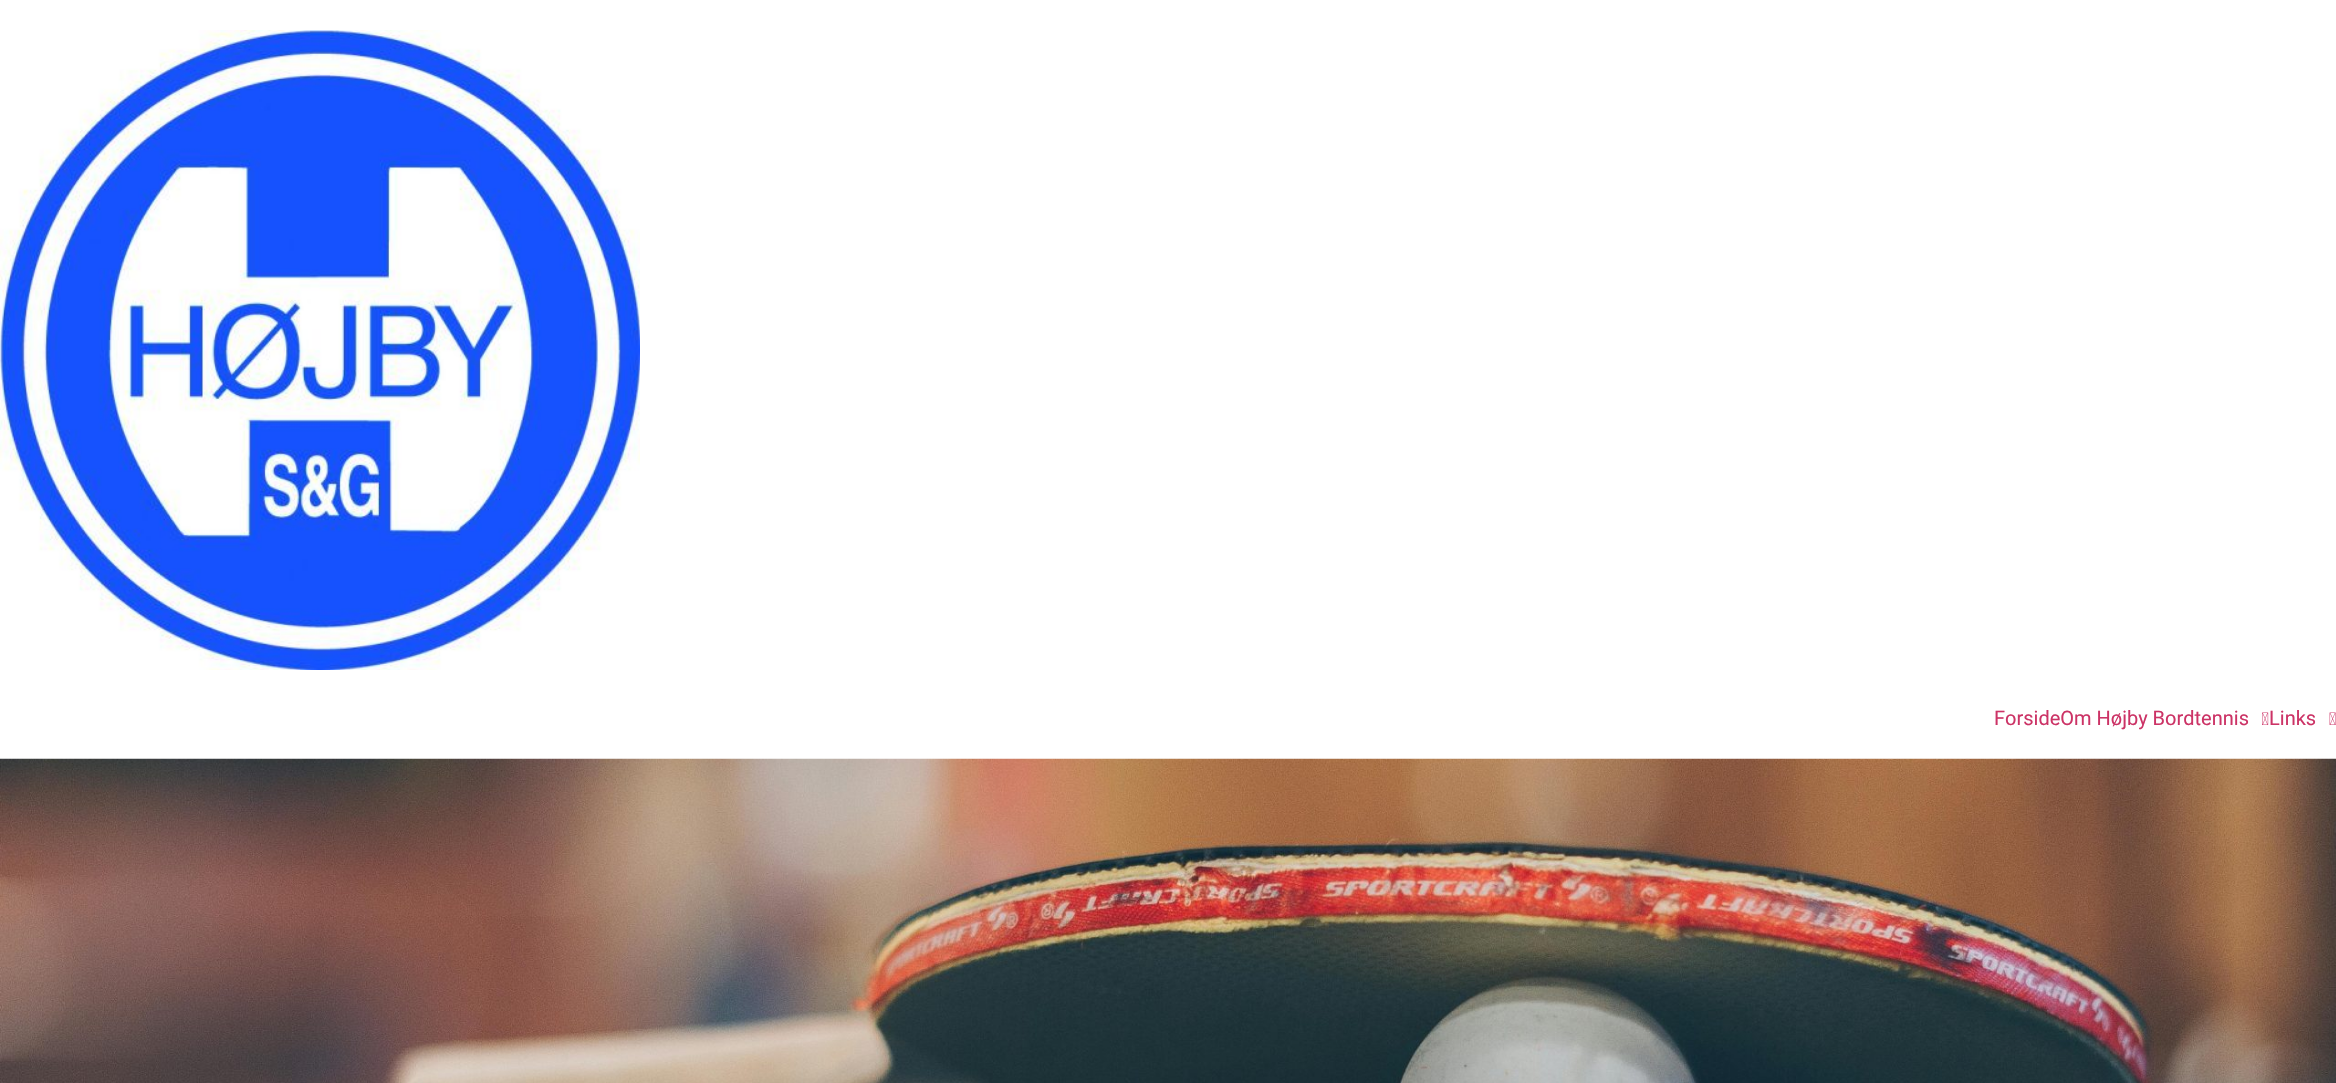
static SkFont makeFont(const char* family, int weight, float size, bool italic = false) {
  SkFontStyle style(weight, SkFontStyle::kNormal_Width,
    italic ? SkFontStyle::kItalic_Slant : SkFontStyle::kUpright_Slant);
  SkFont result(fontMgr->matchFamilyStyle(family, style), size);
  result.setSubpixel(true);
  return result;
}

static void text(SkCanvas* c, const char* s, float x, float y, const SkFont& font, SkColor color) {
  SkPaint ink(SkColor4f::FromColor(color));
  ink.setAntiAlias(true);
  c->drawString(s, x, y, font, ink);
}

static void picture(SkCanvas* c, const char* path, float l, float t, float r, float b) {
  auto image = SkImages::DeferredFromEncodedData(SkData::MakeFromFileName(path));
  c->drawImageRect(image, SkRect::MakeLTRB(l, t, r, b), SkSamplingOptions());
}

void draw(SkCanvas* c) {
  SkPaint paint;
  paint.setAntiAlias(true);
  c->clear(0xffffffff);
  picture(c, "img_01.png", 0, 30, 640, 670);
  SkFont face1 = makeFont("Roboto", 400, 20);
  text(c, "ForsideOm Højby Bordtennis", 1994, 725, face1, 0xffcc3366);
  picture(c, "img_02.png", 2262, 712, 2269, 725);
  text(c, "Links", 2269, 725, face1, 0xffcc3366);
  picture(c, "img_03.png", 2329, 712, 2336, 725);
  picture(c, "img_04.png", 0, 758, 2336, 1083);
}
